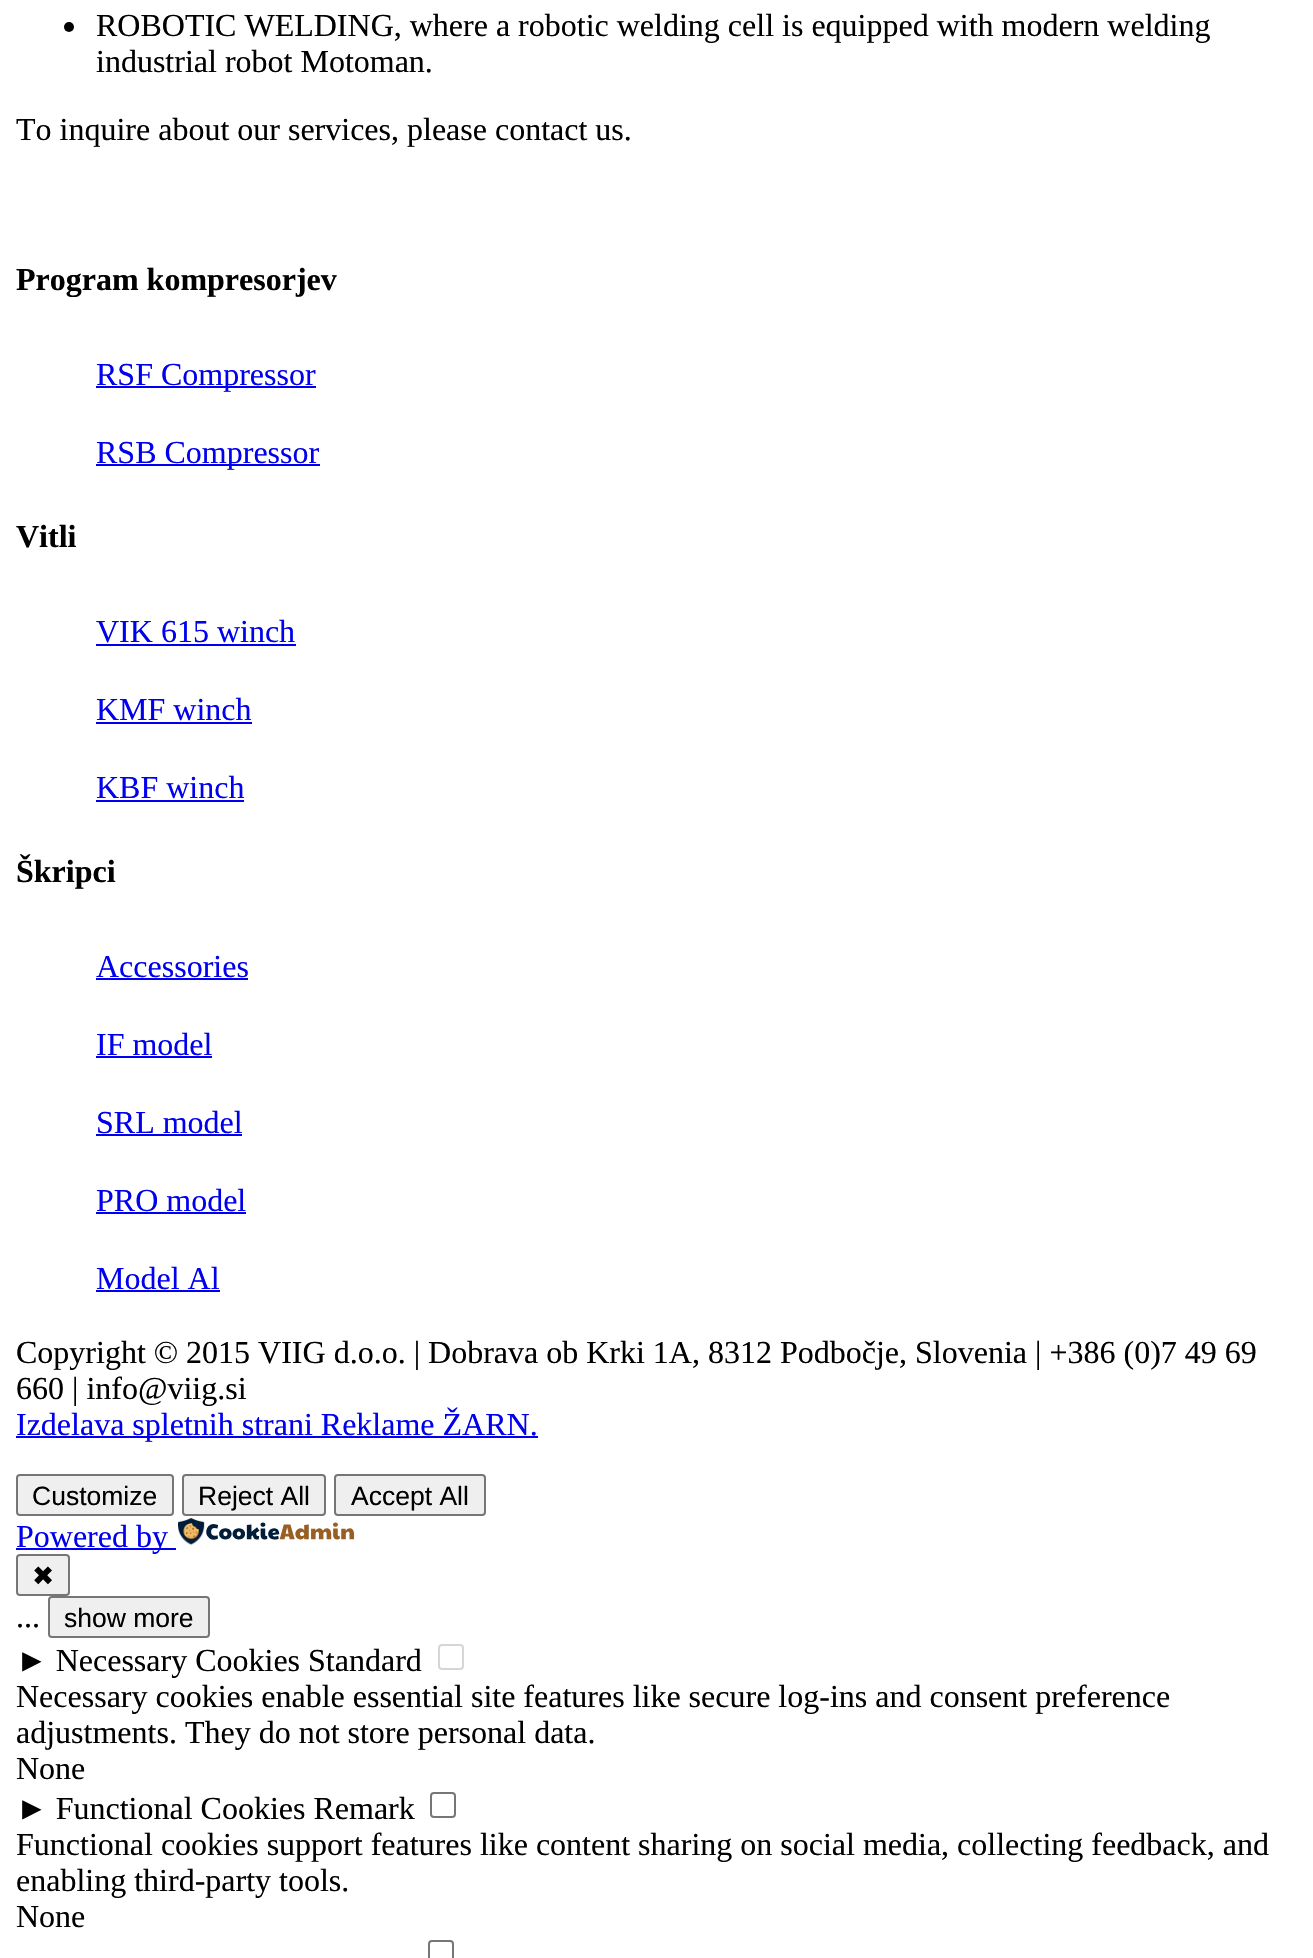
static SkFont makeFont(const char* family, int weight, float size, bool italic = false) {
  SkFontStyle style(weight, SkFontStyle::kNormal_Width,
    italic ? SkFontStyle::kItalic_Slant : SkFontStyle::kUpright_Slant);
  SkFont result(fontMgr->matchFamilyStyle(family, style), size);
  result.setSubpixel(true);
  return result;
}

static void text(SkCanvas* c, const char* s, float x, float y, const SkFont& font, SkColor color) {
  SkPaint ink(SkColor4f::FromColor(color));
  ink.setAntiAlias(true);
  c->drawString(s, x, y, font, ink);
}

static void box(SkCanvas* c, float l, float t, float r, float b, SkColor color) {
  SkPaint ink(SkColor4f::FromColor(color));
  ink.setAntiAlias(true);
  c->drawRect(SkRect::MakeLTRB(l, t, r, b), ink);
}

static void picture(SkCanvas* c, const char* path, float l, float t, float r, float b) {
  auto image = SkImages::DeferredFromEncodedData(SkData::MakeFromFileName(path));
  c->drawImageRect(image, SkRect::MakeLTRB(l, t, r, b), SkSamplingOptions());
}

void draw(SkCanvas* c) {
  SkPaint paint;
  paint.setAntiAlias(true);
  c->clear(0xffffffff);
  paint.setColor(0xff000000);
  c->drawCircle(69, 27, 5, paint);
  SkFont face1 = makeFont("Liberation Serif", 400, 32);
  text(c, "ROBOTIC WELDING, where a robotic welding cell is equipped with modern welding", 96, 36, face1, 0xff000000);
  text(c, "industrial robot Motoman.", 96, 72, face1, 0xff000000);
  text(c, "To inquire about our services, please contact us.", 16, 140, face1, 0xff000000);
  SkFont face2 = makeFont("Liberation Serif", 700, 32);
  text(c, "Program kompresorjev", 16, 290, face2, 0xff000000);
  box(c, 96, 386, 316, 388, 0xff0000ee);
  text(c, "RSF Compressor", 96, 385, face1, 0xff0000ee);
  box(c, 96, 464, 320, 466, 0xff0000ee);
  text(c, "RSB Compressor", 96, 463, face1, 0xff0000ee);
  text(c, "Vitli", 16, 547, face2, 0xff000000);
  text(c, "VIK 615 winch", 96, 642, face1, 0xff0000ee);
  box(c, 96, 644, 296, 646, 0xff0000ee);
  text(c, "KMF winch", 96, 720, face1, 0xff0000ee);
  box(c, 96, 722, 252, 724, 0xff0000ee);
  text(c, "KBF winch", 96, 798, face1, 0xff0000ee);
  box(c, 96, 800, 244, 802, 0xff0000ee);
  text(c, "Škripci", 16, 882, face2, 0xff000000);
  text(c, "Accessories", 96, 977, face1, 0xff0000ee);
  box(c, 96, 978, 248, 980, 0xff0000ee);
  text(c, "IF model", 96, 1055, face1, 0xff0000ee);
  box(c, 96, 1056, 212, 1058, 0xff0000ee);
  text(c, "SRL model", 96, 1133, face1, 0xff0000ee);
  box(c, 96, 1134, 242, 1136, 0xff0000ee);
  text(c, "PRO model", 96, 1211, face1, 0xff0000ee);
  box(c, 96, 1212, 246, 1214, 0xff0000ee);
  text(c, "Model Al", 96, 1289, face1, 0xff0000ee);
  box(c, 96, 1290, 220, 1292, 0xff0000ee);
  text(c, "Copyright © 2015 VIIG d.o.o. | Dobrava ob Krki 1A, 8312 Podbočje, Slovenia | +386 (0)7 49 69", 16, 1363, face1, 0xff000000);
  text(c, "660 | info@viig.si", 16, 1399, face1, 0xff000000);
  box(c, 16, 1436, 538, 1438, 0xff0000ee);
  text(c, "Izdelava spletnih strani Reklame ŽARN.", 16, 1435, face1, 0xff0000ee);
  paint.setColor(0xffefefef);
  c->drawRoundRect(SkRect::MakeLTRB(17, 1475, 173, 1515), 3, 3, paint);
  paint.setStyle(SkPaint::kStroke_Style);
  paint.setStrokeWidth(2);
  paint.setColor(0xff767676);
  c->drawRoundRect(SkRect::MakeLTRB(17, 1475, 173, 1515), 3, 3, paint);
  SkFont face3 = makeFont("Liberation Sans", 400, 26.5f);
  text(c, "Customize", 32, 1505, face3, 0xff000000);
  paint.setStyle(SkPaint::kFill_Style);
  paint.setColor(0xffefefef);
  c->drawRoundRect(SkRect::MakeLTRB(183, 1475, 325, 1515), 3, 3, paint);
  paint.setStyle(SkPaint::kStroke_Style);
  paint.setColor(0xff767676);
  c->drawRoundRect(SkRect::MakeLTRB(183, 1475, 325, 1515), 3, 3, paint);
  text(c, "Reject All", 198, 1505, face3, 0xff000000);
  paint.setStyle(SkPaint::kFill_Style);
  paint.setColor(0xffefefef);
  c->drawRoundRect(SkRect::MakeLTRB(335, 1475, 485, 1515), 3, 3, paint);
  paint.setStyle(SkPaint::kStroke_Style);
  paint.setColor(0xff767676);
  c->drawRoundRect(SkRect::MakeLTRB(335, 1475, 485, 1515), 3, 3, paint);
  text(c, "Accept All", 351, 1505, face3, 0xff000000);
  box(c, 16, 1548, 176, 1550, 0xff0000ee);
  text(c, "Powered by", 16, 1547, face1, 0xff0000ee);
  picture(c, "img_01.png", 178, 1518, 355, 1545);
  paint.setStyle(SkPaint::kFill_Style);
  paint.setColor(0xffefefef);
  c->drawRoundRect(SkRect::MakeLTRB(17, 1555, 69, 1595), 3, 3, paint);
  paint.setStyle(SkPaint::kStroke_Style);
  paint.setColor(0xff767676);
  c->drawRoundRect(SkRect::MakeLTRB(17, 1555, 69, 1595), 3, 3, paint);
  SkFont face4 = makeFont("DejaVu Sans", 400, 26.5f);
  text(c, "✖", 32, 1585, face4, 0xff000000);
  text(c, "...", 16, 1627, face1, 0xff000000);
  paint.setStyle(SkPaint::kFill_Style);
  paint.setColor(0xffefefef);
  c->drawRoundRect(SkRect::MakeLTRB(49, 1597, 209, 1637), 3, 3, paint);
  paint.setStyle(SkPaint::kStroke_Style);
  paint.setColor(0xff767676);
  c->drawRoundRect(SkRect::MakeLTRB(49, 1597, 209, 1637), 3, 3, paint);
  text(c, "show more", 64, 1627, face3, 0xff000000);
  text(c, "► Necessary Cookies Standard", 16, 1671, face1, 0xff000000);
  paint.setColor(0xffd6d6d6);
  c->drawRoundRect(SkRect::MakeLTRB(439, 1645, 463, 1669), 3, 3, paint);
  text(c, "Necessary cookies enable essential site features like secure log-ins and consent preference", 16, 1707, face1, 0xff000000);
  text(c, "adjustments. They do not store personal data.", 16, 1743, face1, 0xff000000);
  text(c, "None", 16, 1779, face1, 0xff000000);
  text(c, "► Functional Cookies Remark", 16, 1819, face1, 0xff000000);
  paint.setColor(0xff767676);
  c->drawRoundRect(SkRect::MakeLTRB(431, 1793, 455, 1817), 3, 3, paint);
  text(c, "Functional cookies support features like content sharing on social media, collecting feedback, and", 16, 1855, face1, 0xff000000);
  text(c, "enabling third-party tools.", 16, 1891, face1, 0xff000000);
  text(c, "None", 16, 1927, face1, 0xff000000);
  c->drawRoundRect(SkRect::MakeLTRB(429, 1941, 453, 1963), 3, 3, paint);
}
